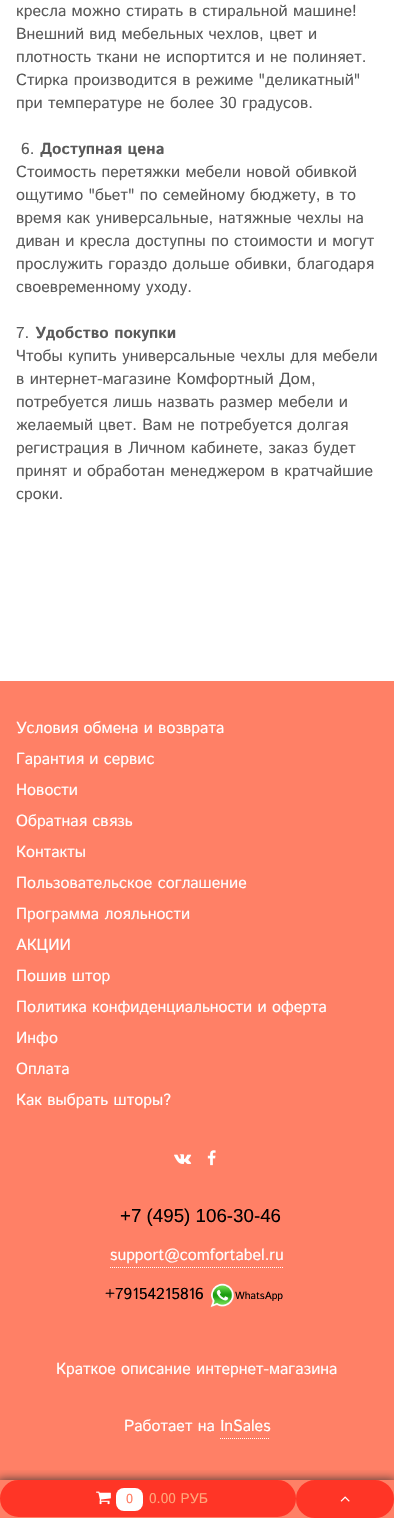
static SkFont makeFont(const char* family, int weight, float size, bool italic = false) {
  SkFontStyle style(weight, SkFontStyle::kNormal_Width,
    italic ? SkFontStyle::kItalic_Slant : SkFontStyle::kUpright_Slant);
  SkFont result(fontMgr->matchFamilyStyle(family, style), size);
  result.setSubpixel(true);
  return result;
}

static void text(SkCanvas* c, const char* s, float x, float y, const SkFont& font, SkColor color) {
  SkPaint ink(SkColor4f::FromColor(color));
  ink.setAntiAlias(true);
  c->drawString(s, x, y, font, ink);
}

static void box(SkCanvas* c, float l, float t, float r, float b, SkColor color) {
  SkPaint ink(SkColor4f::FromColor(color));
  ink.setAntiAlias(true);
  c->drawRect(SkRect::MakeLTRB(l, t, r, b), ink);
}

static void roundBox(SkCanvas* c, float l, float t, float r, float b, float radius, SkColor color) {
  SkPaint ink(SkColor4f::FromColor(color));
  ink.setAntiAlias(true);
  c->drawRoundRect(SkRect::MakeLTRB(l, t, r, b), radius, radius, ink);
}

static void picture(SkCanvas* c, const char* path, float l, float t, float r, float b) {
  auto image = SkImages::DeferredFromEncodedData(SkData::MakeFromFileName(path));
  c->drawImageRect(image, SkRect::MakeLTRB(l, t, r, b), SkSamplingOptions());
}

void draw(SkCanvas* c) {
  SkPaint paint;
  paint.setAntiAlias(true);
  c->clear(0xffff8066);
  box(c, 0, 0, 394, 681, 0xffffffff);
  SkFont face1 = makeFont("Istok Web", 400, 16);
  text(c, "кресла можно стирать в стиральной машине!", 16, 16, face1, 0xff5a5a5a);
  text(c, "Внешний вид мебельных чехлов, цвет и", 16, 39, face1, 0xff5a5a5a);
  text(c, "плотность ткани не испортится и не полиняет.", 16, 62, face1, 0xff5a5a5a);
  text(c, "Стирка производится в режиме \"деликатный\"", 16, 85, face1, 0xff5a5a5a);
  text(c, "при температуре не более 30 градусов.", 16, 108, face1, 0xff5a5a5a);
  text(c, "6.", 21, 154, face1, 0xff5a5a5a);
  SkFont face2 = makeFont("Istok Web", 700, 16);
  text(c, "Доступная цена", 40, 154, face2, 0xff5a5a5a);
  text(c, "Стоимость перетяжки мебели новой обивкой", 16, 177, face1, 0xff5a5a5a);
  text(c, "ощутимо \"бьет\" по семейному бюджету, в то", 16, 200, face1, 0xff5a5a5a);
  text(c, "время как универсальные, натяжные чехлы на", 16, 223, face1, 0xff5a5a5a);
  text(c, "диван и кресла доступны по стоимости и могут", 16, 246, face1, 0xff5a5a5a);
  text(c, "прослужить гораздо дольше обивки, благодаря", 16, 269, face1, 0xff5a5a5a);
  text(c, "своевременному уходу.", 16, 292, face1, 0xff5a5a5a);
  text(c, "7.", 16, 338, face1, 0xff5a5a5a);
  text(c, "Удобство покупки", 35, 338, face2, 0xff5a5a5a);
  text(c, "Чтобы купить универсальные чехлы для мебели", 16, 361, face1, 0xff5a5a5a);
  text(c, "в интернет-магазине Комфортный Дом,", 16, 384, face1, 0xff5a5a5a);
  text(c, "потребуется лишь назвать размер мебели и", 16, 407, face1, 0xff5a5a5a);
  text(c, "желаемый цвет. Вам не потребуется долгая", 16, 430, face1, 0xff5a5a5a);
  text(c, "регистрация в Личном кабинете, заказ будет", 16, 453, face1, 0xff5a5a5a);
  text(c, "принят и обработан менеджером в кратчайшие", 16, 476, face1, 0xff5a5a5a);
  text(c, "сроки.", 16, 499, face1, 0xff5a5a5a);
  text(c, "Условия обмена и возврата", 16, 733, face1, 0xffffffff);
  text(c, "Гарантия и сервис", 16, 764, face1, 0xffffffff);
  text(c, "Новости", 16, 795, face1, 0xffffffff);
  text(c, "Обратная связь", 16, 826, face1, 0xffffffff);
  text(c, "Контакты", 16, 857, face1, 0xffffffff);
  text(c, "Пользовательское соглашение", 16, 888, face1, 0xffffffff);
  text(c, "Программа лояльности", 16, 919, face1, 0xffffffff);
  text(c, "АКЦИИ", 16, 950, face1, 0xffffffff);
  text(c, "Пошив штор", 16, 981, face1, 0xffffffff);
  text(c, "Политика конфиденциальности и оферта", 16, 1012, face1, 0xffffffff);
  text(c, "Инфо", 16, 1043, face1, 0xffffffff);
  text(c, "Оплата", 16, 1074, face1, 0xffffffff);
  text(c, "Как выбрать шторы?", 16, 1105, face1, 0xffffffff);
  picture(c, "img_01.png", 174, 1154, 192, 1164);
  picture(c, "img_02.png", 207, 1150, 216, 1166);
  SkFont face3 = makeFont("Liberation Sans", 400, 18.75f);
  text(c, "+7 (495) 106-30-46", 120, 1222, face3, 0xff000000);
  text(c, "support@comfortabel.ru", 110, 1260, face1, 0xffffffff);
  paint.setStyle(SkPaint::kStroke_Style);
  paint.setStrokeWidth(1);
  paint.setColor(0xffffffff);
  paint.setPathEffect(SkDashPathEffect::Make({{1, 1}}, 0));
  c->drawPath(SkPathBuilder().moveTo(110, 1267.5f).lineTo(284, 1267.5f).detach(), paint);
  paint.setPathEffect(nullptr);
  text(c, "+79154215816", 105, 1299, face1, 0xff000000);
  picture(c, "img_03.png", 210, 1283, 234, 1308);
  SkFont face4 = makeFont("Istok Web", 400, 10.5f);
  text(c, "WhatsApp", 235, 1299, face4, 0xff000000);
  text(c, "Краткое описание интернет-магазина", 56, 1374, face1, 0xffffffff);
  text(c, "Работает на InSales", 124, 1431, face1, 0xffffffff);
  paint.setPathEffect(SkDashPathEffect::Make({{1, 1}}, 0));
  c->drawPath(SkPathBuilder().moveTo(220, 1438.5f).lineTo(270, 1438.5f).detach(), paint);
  paint.setPathEffect(nullptr);
  c->save();
  c->clipRect(SkRect::MakeLTRB(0, 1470, 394, 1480));
  paint.setStyle(SkPaint::kFill_Style);
  paint.setColor(0xff333333);
  paint.setMaskFilter(SkMaskFilter::MakeBlur(kNormal_SkBlurStyle, 5));
  c->drawRect(SkRect::MakeLTRB(-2, 1480, 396, 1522), paint);
  paint.setMaskFilter(nullptr);
  c->restore();
  paint.setColor(0xffff3526);
  c->drawRoundRect(SkRect::MakeLTRB(1, 1481, 295, 1516), 17.5f, 17.5f, paint);
  paint.setStyle(SkPaint::kStroke_Style);
  paint.setStrokeWidth(2);
  c->drawRoundRect(SkRect::MakeLTRB(1, 1481, 295, 1516), 17.5f, 17.5f, paint);
  picture(c, "img_04.png", 96, 1491, 111, 1505);
  roundBox(c, 116, 1488, 143, 1511, 8, 0xffffffff);
  SkFont face5 = makeFont("Istok Web", 400, 13);
  text(c, "0", 126, 1503, face5, 0xffff8066);
  SkFont face6 = makeFont("Istok Web", 400, 14);
  text(c, "0.00 РУБ", 149, 1503, face6, 0xffffa77a);
  paint.setStyle(SkPaint::kFill_Style);
  c->drawRoundRect(SkRect::MakeLTRB(297, 1481, 393, 1517), 18, 18, paint);
  paint.setStyle(SkPaint::kStroke_Style);
  c->drawRoundRect(SkRect::MakeLTRB(297, 1481, 393, 1517), 18, 18, paint);
  picture(c, "img_05.png", 340, 1496, 350, 1502);
}
